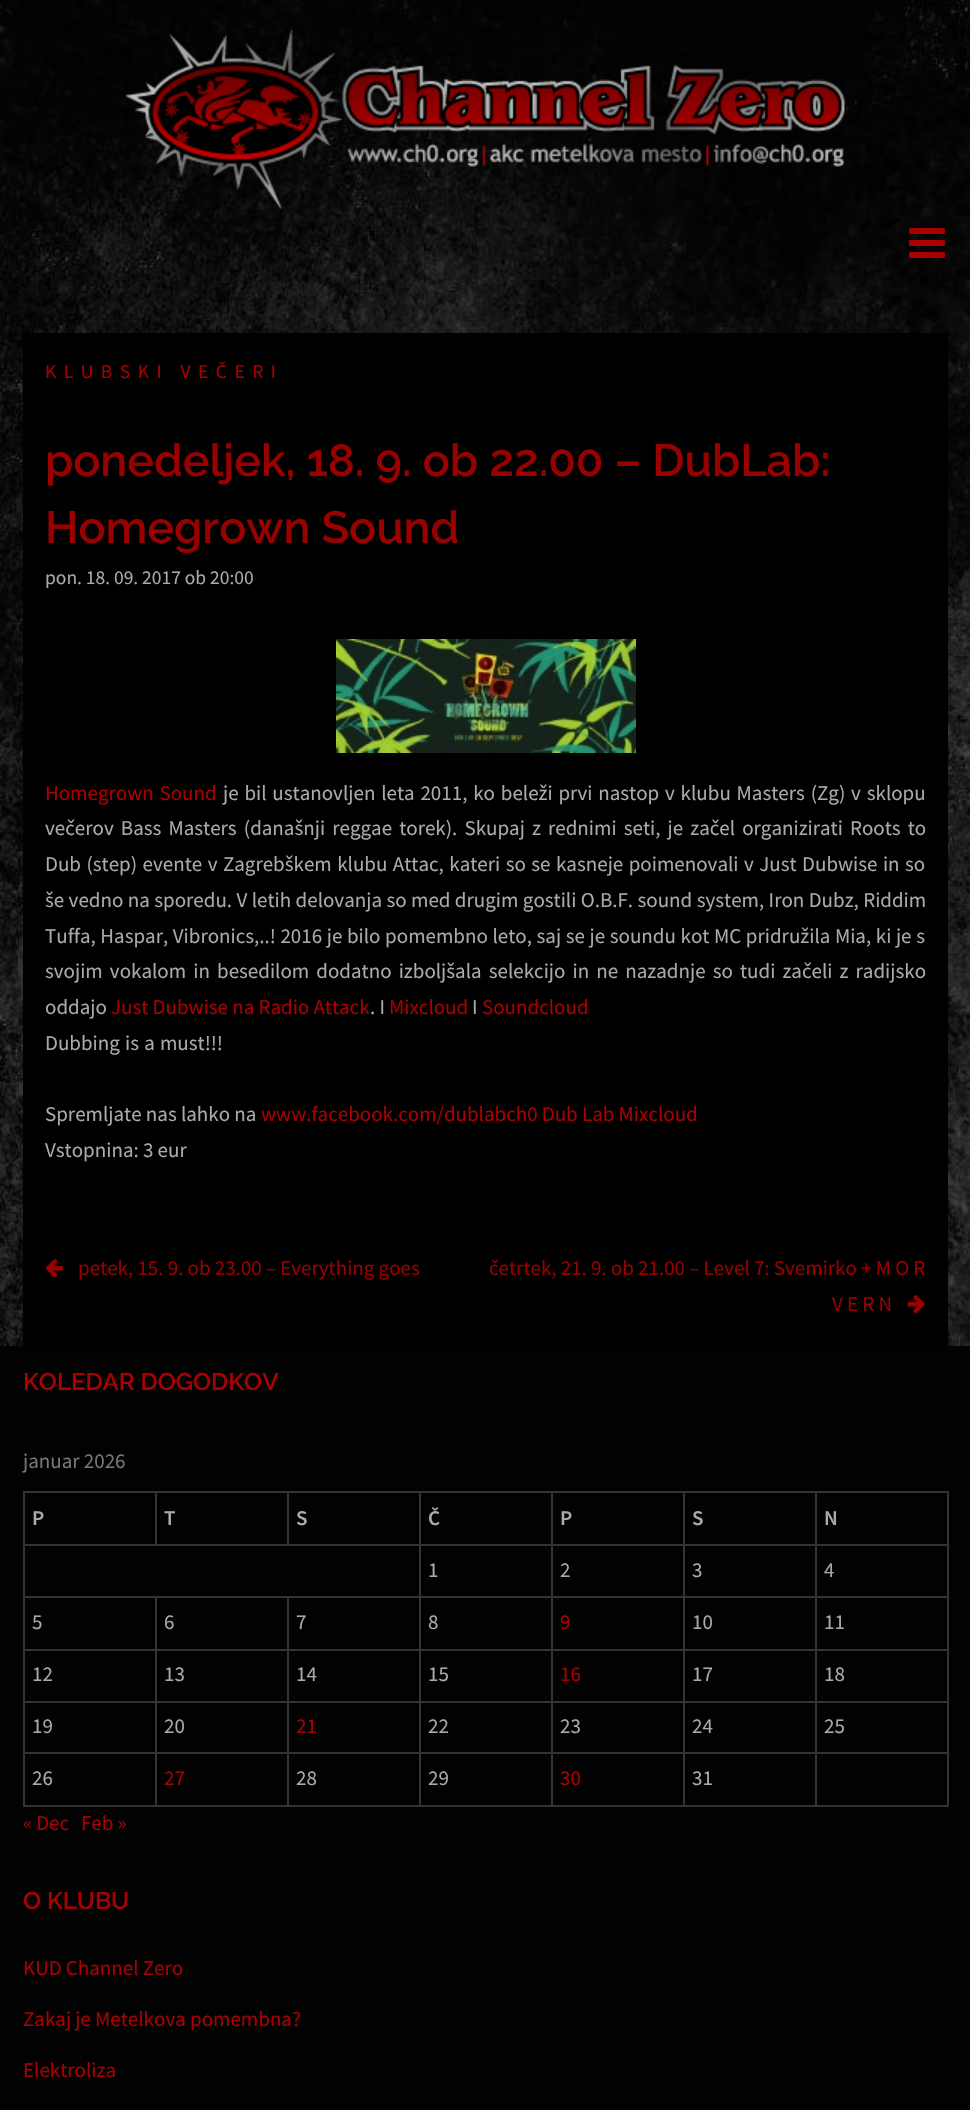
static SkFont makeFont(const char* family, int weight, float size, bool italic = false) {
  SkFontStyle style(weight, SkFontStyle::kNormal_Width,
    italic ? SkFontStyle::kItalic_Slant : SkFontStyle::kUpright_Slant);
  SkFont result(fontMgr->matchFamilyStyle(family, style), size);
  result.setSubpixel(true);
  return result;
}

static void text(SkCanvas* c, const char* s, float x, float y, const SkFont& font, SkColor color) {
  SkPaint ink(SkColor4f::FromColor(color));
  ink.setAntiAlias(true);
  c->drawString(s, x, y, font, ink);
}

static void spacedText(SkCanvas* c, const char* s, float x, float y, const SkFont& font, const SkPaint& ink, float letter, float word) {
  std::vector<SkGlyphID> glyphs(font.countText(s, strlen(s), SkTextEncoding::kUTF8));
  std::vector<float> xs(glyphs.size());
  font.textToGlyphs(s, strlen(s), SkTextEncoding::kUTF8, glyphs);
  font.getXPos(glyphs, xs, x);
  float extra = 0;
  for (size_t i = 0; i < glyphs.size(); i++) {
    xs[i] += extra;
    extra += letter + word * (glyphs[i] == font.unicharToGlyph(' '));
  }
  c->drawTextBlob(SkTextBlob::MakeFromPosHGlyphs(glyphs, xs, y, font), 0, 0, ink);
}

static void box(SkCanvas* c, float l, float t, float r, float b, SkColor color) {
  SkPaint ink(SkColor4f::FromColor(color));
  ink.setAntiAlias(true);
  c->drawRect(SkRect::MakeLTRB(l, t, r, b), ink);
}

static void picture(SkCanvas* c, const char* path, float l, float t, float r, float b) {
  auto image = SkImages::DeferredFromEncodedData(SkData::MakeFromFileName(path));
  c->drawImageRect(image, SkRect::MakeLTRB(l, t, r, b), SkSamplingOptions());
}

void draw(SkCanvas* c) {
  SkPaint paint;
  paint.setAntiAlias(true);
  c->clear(0xffffffff);
  picture(c, "img_01.png", 0, 0, 970, 1346);
  picture(c, "img_02.png", 126, 30, 845, 209);
  picture(c, "img_03.png", 909, 228, 945, 258);
  box(c, 23, 333, 948, 1346, 0xff000000);
  SkFont face1 = makeFont("Source Sans Pro", 400, 19.5f);
  paint.setColor(0xffaa0000);
  spacedText(c, "KLUBSKI VEČERI", 45, 378, face1, paint, 7.5f, 0);
  SkFont face2 = makeFont("Raleway", 600, 45);
  text(c, "ponedeljek, 18. 9. ob 22.00 – DubLab:", 45, 476, face2, 0xff990000);
  text(c, "Homegrown Sound", 45, 543, face2, 0xff990000);
  text(c, "pon. 18. 09. 2017 ob 20:00", 45, 584, face1, 0xffaaaaaa);
  picture(c, "img_04.png", 336, 639, 636, 753);
  SkFont face3 = makeFont("Source Sans Pro", 400, 21);
  spacedText(c, "Homegrown Sound", 45, 800, face3, paint, 0, 1.6f);
  paint.setColor(0xffaaaaaa);
  spacedText(c, "je bil ustanovljen leta 2011, ko beleži prvi nastop v klubu Masters (Zg) v sklopu", 223, 800, face3, paint, 0, 1.6f);
  spacedText(c, "večerov Bass Masters (današnji reggae torek). Skupaj z rednimi seti, je začel organizirati Roots to", 45, 835, face3, paint, 0, 2.9f);
  spacedText(c, "Dub (step) evente v Zagrebškem klubu Attac, kateri so se kasneje poimenovali v Just Dubwise in so", 45, 871, face3, paint, 0, 1.25f);
  spacedText(c, "še vedno na sporedu. V letih delovanja so med drugim gostili O.B.F. sound system, Iron Dubz, Riddim", 45, 907, face3, paint, 0, 0.2f);
  spacedText(c, "Tuffa, Haspar, Vibronics,..! 2016 je bilo pomembno leto, saj se je soundu kot MC pridružila Mia, ki je s", 45, 943, face3, paint, 0, 0.4f);
  spacedText(c, "svojim vokalom in besedilom dodatno izboljšala selekcijo in ne nazadnje so tudi začeli z radijsko", 45, 978, face3, paint, 0, 2.9f);
  text(c, "oddajo", 45, 1014, face3, 0xffaaaaaa);
  text(c, "Just Dubwise na Radio Attack", 111, 1014, face3, 0xffaa0000);
  text(c, ". I", 370, 1014, face3, 0xffaaaaaa);
  text(c, "Mixcloud", 389, 1014, face3, 0xffaa0000);
  text(c, "I", 472, 1014, face3, 0xffaaaaaa);
  text(c, "Soundcloud", 482, 1014, face3, 0xffaa0000);
  spacedText(c, "Dubbing is a must!!!", 45, 1050, face3, paint, 0, 1);
  text(c, "Spremljate nas lahko na", 45, 1121, face3, 0xffaaaaaa);
  text(c, "www.facebook.com/dublabch0 Dub Lab Mixcloud", 261, 1121, face3, 0xffaa0000);
  text(c, "Vstopnina: 3 eur", 45, 1157, face3, 0xffaaaaaa);
  picture(c, "img_05.png", 45, 1259, 63, 1278);
  text(c, "petek, 15. 9. ob 23.00 – Everything goes", 78, 1275, face3, 0xff990000);
  text(c, "četrtek, 21. 9. ob 21.00 – Level 7: Svemirko + M O R", 489, 1275, face3, 0xff990000);
  text(c, "V E R N", 832, 1311, face3, 0xff990000);
  picture(c, "img_06.png", 907, 1295, 925, 1314);
  box(c, 0, 1346, 970, 2110, 0xff020202);
  SkFont face4 = makeFont("Raleway", 600, 24);
  text(c, "KOLEDAR DOGODKOV", 23, 1390, face4, 0xffaa0000);
  text(c, "januar 2026", 23, 1468, face3, 0xff777777);
  box(c, 815, 1491, 948, 1493, 0xff333333);
  box(c, 815, 1544, 948, 1546, 0xff333333);
  box(c, 815, 1596, 948, 1598, 0xff333333);
  box(c, 815, 1649, 948, 1651, 0xff333333);
  box(c, 815, 1701, 948, 1703, 0xff333333);
  box(c, 815, 1752, 948, 1754, 0xff333333);
  box(c, 947, 1752, 949, 1806, 0xff333333);
  box(c, 815, 1805, 948, 1807, 0xff333333);
  box(c, 815, 1752, 817, 1806, 0xff333333);
  box(c, 683, 1752, 816, 1754, 0xff333333);
  box(c, 815, 1701, 817, 1754, 0xff333333);
  box(c, 683, 1701, 816, 1703, 0xff333333);
  box(c, 815, 1649, 817, 1703, 0xff333333);
  box(c, 683, 1649, 816, 1651, 0xff333333);
  box(c, 815, 1596, 817, 1650, 0xff333333);
  box(c, 683, 1596, 816, 1598, 0xff333333);
  box(c, 815, 1544, 817, 1598, 0xff333333);
  box(c, 683, 1544, 816, 1546, 0xff333333);
  box(c, 815, 1491, 817, 1545, 0xff333333);
  box(c, 683, 1491, 816, 1493, 0xff333333);
  box(c, 683, 1805, 816, 1807, 0xff333333);
  box(c, 683, 1752, 685, 1806, 0xff333333);
  box(c, 551, 1752, 684, 1754, 0xff333333);
  box(c, 683, 1701, 685, 1754, 0xff333333);
  box(c, 551, 1701, 684, 1703, 0xff333333);
  box(c, 683, 1649, 685, 1703, 0xff333333);
  box(c, 551, 1649, 684, 1651, 0xff333333);
  box(c, 683, 1596, 685, 1650, 0xff333333);
  box(c, 551, 1596, 684, 1598, 0xff333333);
  box(c, 683, 1544, 685, 1598, 0xff333333);
  box(c, 551, 1544, 684, 1546, 0xff333333);
  box(c, 683, 1491, 685, 1545, 0xff333333);
  box(c, 551, 1491, 684, 1493, 0xff333333);
  box(c, 551, 1805, 684, 1807, 0xff333333);
  box(c, 551, 1752, 553, 1806, 0xff333333);
  box(c, 419, 1752, 552, 1754, 0xff333333);
  box(c, 551, 1701, 553, 1754, 0xff333333);
  box(c, 419, 1701, 552, 1703, 0xff333333);
  box(c, 551, 1649, 553, 1703, 0xff333333);
  box(c, 419, 1649, 552, 1651, 0xff333333);
  box(c, 551, 1596, 553, 1650, 0xff333333);
  box(c, 419, 1596, 552, 1598, 0xff333333);
  box(c, 551, 1544, 553, 1598, 0xff333333);
  box(c, 419, 1544, 552, 1546, 0xff333333);
  box(c, 551, 1491, 553, 1545, 0xff333333);
  box(c, 419, 1491, 552, 1493, 0xff333333);
  box(c, 419, 1805, 552, 1807, 0xff333333);
  box(c, 419, 1752, 421, 1806, 0xff333333);
  box(c, 287, 1752, 420, 1754, 0xff333333);
  box(c, 419, 1701, 421, 1754, 0xff333333);
  box(c, 287, 1701, 420, 1703, 0xff333333);
  box(c, 419, 1649, 421, 1703, 0xff333333);
  box(c, 287, 1649, 420, 1651, 0xff333333);
  box(c, 419, 1596, 421, 1650, 0xff333333);
  box(c, 287, 1596, 420, 1598, 0xff333333);
  box(c, 419, 1544, 421, 1598, 0xff333333);
  box(c, 23, 1544, 420, 1546, 0xff333333);
  box(c, 419, 1491, 421, 1545, 0xff333333);
  box(c, 287, 1491, 420, 1493, 0xff333333);
  box(c, 287, 1491, 289, 1545, 0xff333333);
  box(c, 155, 1491, 288, 1493, 0xff333333);
  box(c, 155, 1491, 157, 1545, 0xff333333);
  box(c, 23, 1491, 156, 1493, 0xff333333);
  box(c, 287, 1805, 420, 1807, 0xff333333);
  box(c, 287, 1752, 289, 1806, 0xff333333);
  box(c, 155, 1752, 288, 1754, 0xff333333);
  box(c, 287, 1701, 289, 1754, 0xff333333);
  box(c, 155, 1701, 288, 1703, 0xff333333);
  box(c, 287, 1649, 289, 1703, 0xff333333);
  box(c, 155, 1649, 288, 1651, 0xff333333);
  box(c, 287, 1596, 289, 1650, 0xff333333);
  box(c, 155, 1596, 288, 1598, 0xff333333);
  box(c, 155, 1805, 288, 1807, 0xff333333);
  box(c, 155, 1752, 157, 1806, 0xff333333);
  box(c, 23, 1752, 156, 1754, 0xff333333);
  box(c, 155, 1701, 157, 1754, 0xff333333);
  box(c, 23, 1701, 156, 1703, 0xff333333);
  box(c, 155, 1649, 157, 1703, 0xff333333);
  box(c, 23, 1649, 156, 1651, 0xff333333);
  box(c, 155, 1596, 157, 1650, 0xff333333);
  box(c, 23, 1596, 156, 1598, 0xff333333);
  box(c, 23, 1805, 156, 1807, 0xff333333);
  box(c, 23, 1752, 25, 1806, 0xff333333);
  box(c, 23, 1701, 25, 1754, 0xff333333);
  box(c, 23, 1649, 25, 1703, 0xff333333);
  box(c, 23, 1596, 25, 1650, 0xff333333);
  box(c, 23, 1544, 25, 1598, 0xff333333);
  box(c, 23, 1491, 25, 1545, 0xff333333);
  SkFont face5 = makeFont("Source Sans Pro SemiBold", 600, 21);
  text(c, "P", 32, 1525, face5, 0xffaaaaaa);
  text(c, "T", 164, 1525, face5, 0xffaaaaaa);
  text(c, "S", 296, 1525, face5, 0xffaaaaaa);
  text(c, "Č", 428, 1525, face5, 0xffaaaaaa);
  text(c, "P", 560, 1525, face5, 0xffaaaaaa);
  text(c, "S", 692, 1525, face5, 0xffaaaaaa);
  box(c, 947, 1701, 949, 1754, 0xff333333);
  box(c, 947, 1649, 949, 1703, 0xff333333);
  box(c, 947, 1596, 949, 1650, 0xff333333);
  box(c, 947, 1544, 949, 1598, 0xff333333);
  box(c, 947, 1491, 949, 1545, 0xff333333);
  text(c, "N", 824, 1525, face5, 0xffaaaaaa);
  text(c, "1", 428, 1577, face3, 0xffaaaaaa);
  text(c, "2", 560, 1577, face3, 0xffaaaaaa);
  text(c, "3", 692, 1577, face3, 0xffaaaaaa);
  text(c, "4", 824, 1577, face3, 0xffaaaaaa);
  text(c, "5", 32, 1629, face3, 0xffaaaaaa);
  text(c, "6", 164, 1629, face3, 0xffaaaaaa);
  text(c, "7", 296, 1629, face3, 0xffaaaaaa);
  text(c, "8", 428, 1629, face3, 0xffaaaaaa);
  text(c, "9", 560, 1629, face3, 0xffaa0000);
  text(c, "10", 692, 1629, face3, 0xffaaaaaa);
  text(c, "11", 824, 1629, face3, 0xffaaaaaa);
  text(c, "12", 32, 1681, face3, 0xffaaaaaa);
  text(c, "13", 164, 1681, face3, 0xffaaaaaa);
  text(c, "14", 296, 1681, face3, 0xffaaaaaa);
  text(c, "15", 428, 1681, face3, 0xffaaaaaa);
  text(c, "16", 560, 1681, face3, 0xffaa0000);
  text(c, "17", 692, 1681, face3, 0xffaaaaaa);
  text(c, "18", 824, 1681, face3, 0xffaaaaaa);
  text(c, "19", 32, 1733, face3, 0xffaaaaaa);
  text(c, "20", 164, 1733, face3, 0xffaaaaaa);
  text(c, "21", 296, 1733, face3, 0xffaa0000);
  text(c, "22", 428, 1733, face3, 0xffaaaaaa);
  text(c, "23", 560, 1733, face3, 0xffaaaaaa);
  text(c, "24", 692, 1733, face3, 0xffaaaaaa);
  text(c, "25", 824, 1733, face3, 0xffaaaaaa);
  text(c, "26", 32, 1785, face3, 0xffaaaaaa);
  text(c, "27", 164, 1785, face3, 0xffaa0000);
  text(c, "28", 296, 1785, face3, 0xffaaaaaa);
  text(c, "29", 428, 1785, face3, 0xffaaaaaa);
  text(c, "30", 560, 1785, face3, 0xffaa0000);
  text(c, "31", 692, 1785, face3, 0xffaaaaaa);
  text(c, "« Dec", 23, 1830, face3, 0xffaa0000);
  text(c, "Feb »", 81, 1830, face3, 0xffaa0000);
  text(c, "O KLUBU", 23, 1909, face4, 0xffaa0000);
  text(c, "KUD Channel Zero", 23, 1975, face3, 0xffaa0000);
  text(c, "Zakaj je Metelkova pomembna?", 23, 2026, face3, 0xffaa0000);
  text(c, "Elektroliza", 23, 2077, face3, 0xffaa0000);
}
